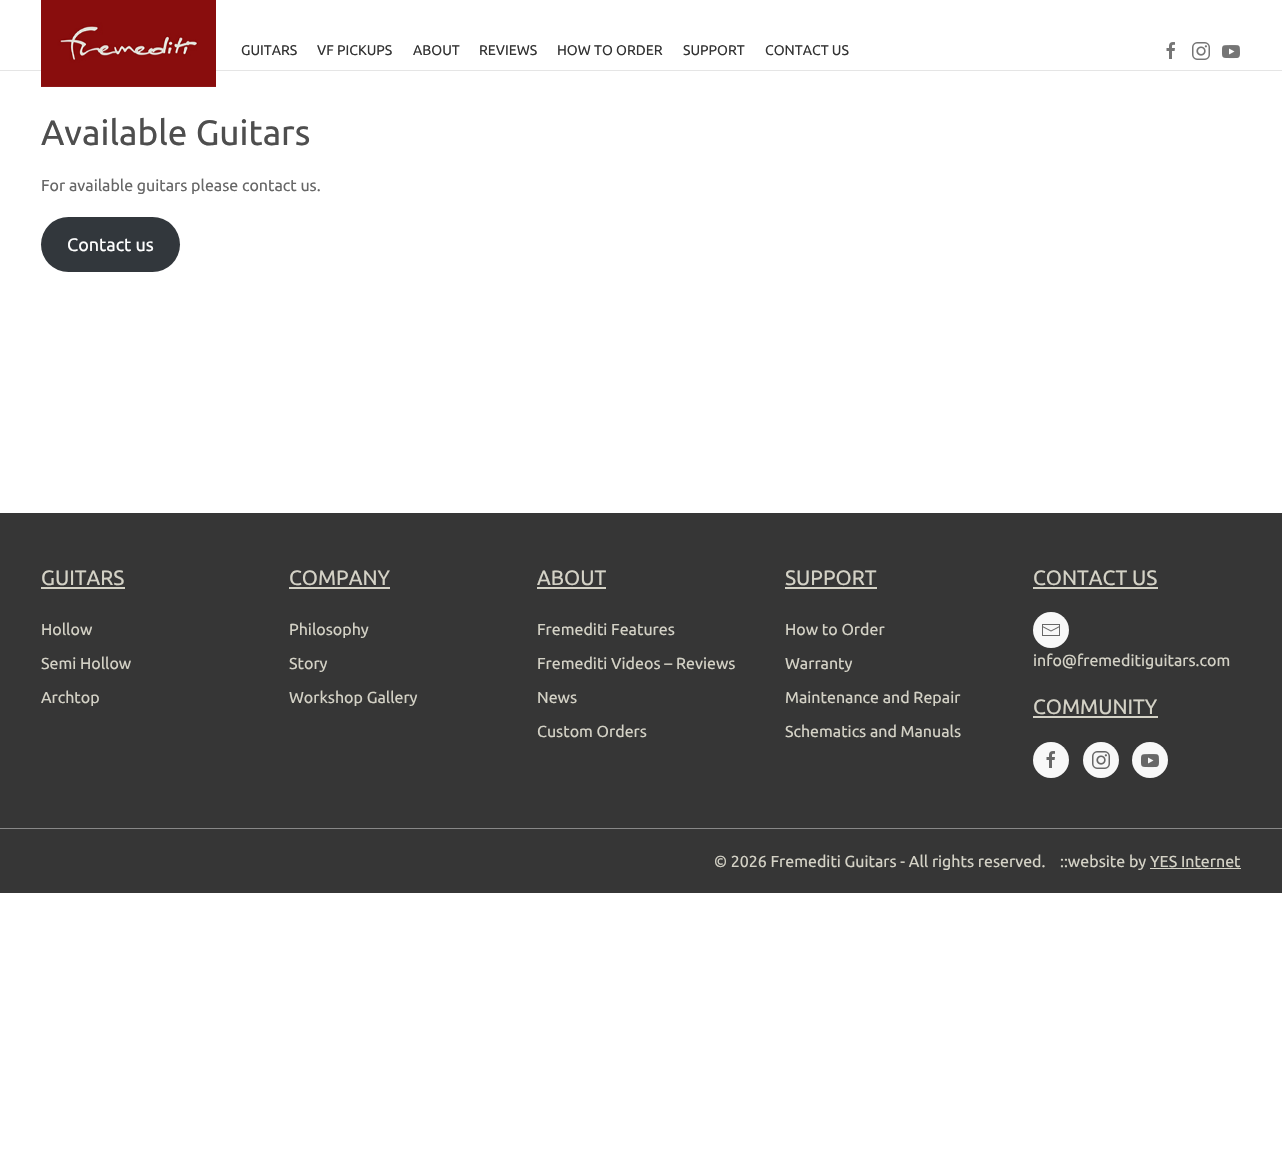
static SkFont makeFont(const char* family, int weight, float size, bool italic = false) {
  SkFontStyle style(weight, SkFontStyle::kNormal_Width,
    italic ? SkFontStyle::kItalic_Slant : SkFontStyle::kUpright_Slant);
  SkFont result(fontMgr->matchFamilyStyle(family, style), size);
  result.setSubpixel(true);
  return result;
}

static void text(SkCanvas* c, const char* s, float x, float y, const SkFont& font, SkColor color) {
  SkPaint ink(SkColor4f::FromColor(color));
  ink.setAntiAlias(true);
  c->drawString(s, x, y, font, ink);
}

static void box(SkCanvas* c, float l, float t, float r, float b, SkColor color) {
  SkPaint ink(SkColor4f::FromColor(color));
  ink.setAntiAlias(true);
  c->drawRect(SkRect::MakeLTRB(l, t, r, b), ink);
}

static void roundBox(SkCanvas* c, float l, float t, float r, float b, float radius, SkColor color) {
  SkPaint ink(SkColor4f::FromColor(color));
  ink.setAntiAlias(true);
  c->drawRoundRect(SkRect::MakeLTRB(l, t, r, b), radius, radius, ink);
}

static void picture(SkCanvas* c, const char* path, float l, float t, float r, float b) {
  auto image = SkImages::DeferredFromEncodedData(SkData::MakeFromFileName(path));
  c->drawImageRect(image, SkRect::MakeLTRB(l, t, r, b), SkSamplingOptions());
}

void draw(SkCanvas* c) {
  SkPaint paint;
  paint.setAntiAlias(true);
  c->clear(0xffffffff);
  box(c, 0, 70, 1282, 71, 0xffe5e5e5);
  picture(c, "img_01.png", 41, 0, 216, 87);
  SkFont face1 = makeFont("Ubuntu", 400, 14);
  text(c, "GUITARS", 241, 55, face1, 0xff333333);
  text(c, "VF PICKUPS", 317, 55, face1, 0xff333333);
  text(c, "ABOUT", 413, 55, face1, 0xff333333);
  text(c, "REVIEWS", 479, 55, face1, 0xff333333);
  text(c, "HOW TO ORDER", 557, 55, face1, 0xff333333);
  text(c, "SUPPORT", 683, 55, face1, 0xff333333);
  text(c, "CONTACT US", 765, 55, face1, 0xff333333);
  picture(c, "img_02.png", 1166, 42, 1175, 59);
  picture(c, "img_03.png", 1192, 42, 1210, 60);
  picture(c, "img_04.png", 1222, 45, 1240, 59);
  SkFont face2 = makeFont("Ubuntu", 400, 35.25f);
  text(c, "Available Guitars", 41, 145, face2, 0xff4e4e4e);
  SkFont face3 = makeFont("Ubuntu", 400, 16);
  text(c, "For available guitars please contact us.", 41, 191, face3, 0xff676767);
  roundBox(c, 41, 217, 180, 272, 27.5f, 0xff32373c);
  SkFont face4 = makeFont("Ubuntu", 400, 18);
  text(c, "Contact us", 67, 251, face4, 0xffffffff);
  box(c, 0, 513, 1282, 893, 0xff363636);
  SkFont face5 = makeFont("Ubuntu", 400, 20.75f);
  text(c, "GUITARS", 41, 585, face5, 0xffd4d2c6);
  box(c, 41, 587, 125, 589, 0xffd4d2c6);
  text(c, "Hollow", 41, 635, face3, 0xffd4d2c6);
  text(c, "Semi Hollow", 41, 669, face3, 0xffd4d2c6);
  text(c, "Archtop", 41, 703, face3, 0xffd4d2c6);
  text(c, "COMPANY", 289, 585, face5, 0xffd4d2c6);
  box(c, 289, 587, 390, 589, 0xffd4d2c6);
  text(c, "Philosophy", 289, 635, face3, 0xffd4d2c6);
  text(c, "Story", 289, 669, face3, 0xffd4d2c6);
  text(c, "Workshop Gallery", 289, 703, face3, 0xffd4d2c6);
  text(c, "ABOUT", 537, 585, face5, 0xffd4d2c6);
  box(c, 537, 587, 606, 589, 0xffd4d2c6);
  text(c, "Fremediti Features", 537, 635, face3, 0xffd4d2c6);
  text(c, "Fremediti Videos – Reviews", 537, 669, face3, 0xffd4d2c6);
  text(c, "News", 537, 703, face3, 0xffd4d2c6);
  text(c, "Custom Orders", 537, 737, face3, 0xffd4d2c6);
  text(c, "SUPPORT", 785, 585, face5, 0xffd4d2c6);
  box(c, 785, 587, 877, 589, 0xffd4d2c6);
  text(c, "How to Order", 785, 635, face3, 0xffd4d2c6);
  text(c, "Warranty", 785, 669, face3, 0xffd4d2c6);
  text(c, "Maintenance and Repair", 785, 703, face3, 0xffd4d2c6);
  text(c, "Schematics and Manuals", 785, 737, face3, 0xffd4d2c6);
  text(c, "CONTACT US", 1033, 585, face5, 0xffd4d2c6);
  box(c, 1033, 587, 1158, 589, 0xffd4d2c6);
  paint.setColor(0xfff8f8f8);
  c->drawCircle(1051, 630, 18, paint);
  picture(c, "img_05.png", 1042, 624, 1060, 636);
  text(c, "info@fremeditiguitars.com", 1033, 666, face3, 0xffd4d2c6);
  text(c, "COMMUNITY", 1033, 714, face5, 0xffd4d2c6);
  box(c, 1033, 716, 1158, 718, 0xffd4d2c6);
  c->drawCircle(1051, 760, 18, paint);
  picture(c, "img_06.png", 1046, 751, 1055, 768);
  c->drawCircle(1101, 760, 18, paint);
  picture(c, "img_07.png", 1092, 751, 1110, 769);
  c->drawCircle(1150, 760, 18, paint);
  picture(c, "img_08.png", 1141, 754, 1159, 768);
  box(c, 0, 828, 1282, 829, 0xff888888);
  text(c, "© 2026 Fremediti Guitars - All rights reserved.", 714, 867, face3, 0xffd4d2c6);
  text(c, "::website by YES Internet", 1060, 867, face3, 0xffd4d2c6);
  box(c, 1150, 868, 1241, 869, 0xffd4d2c6);
}
